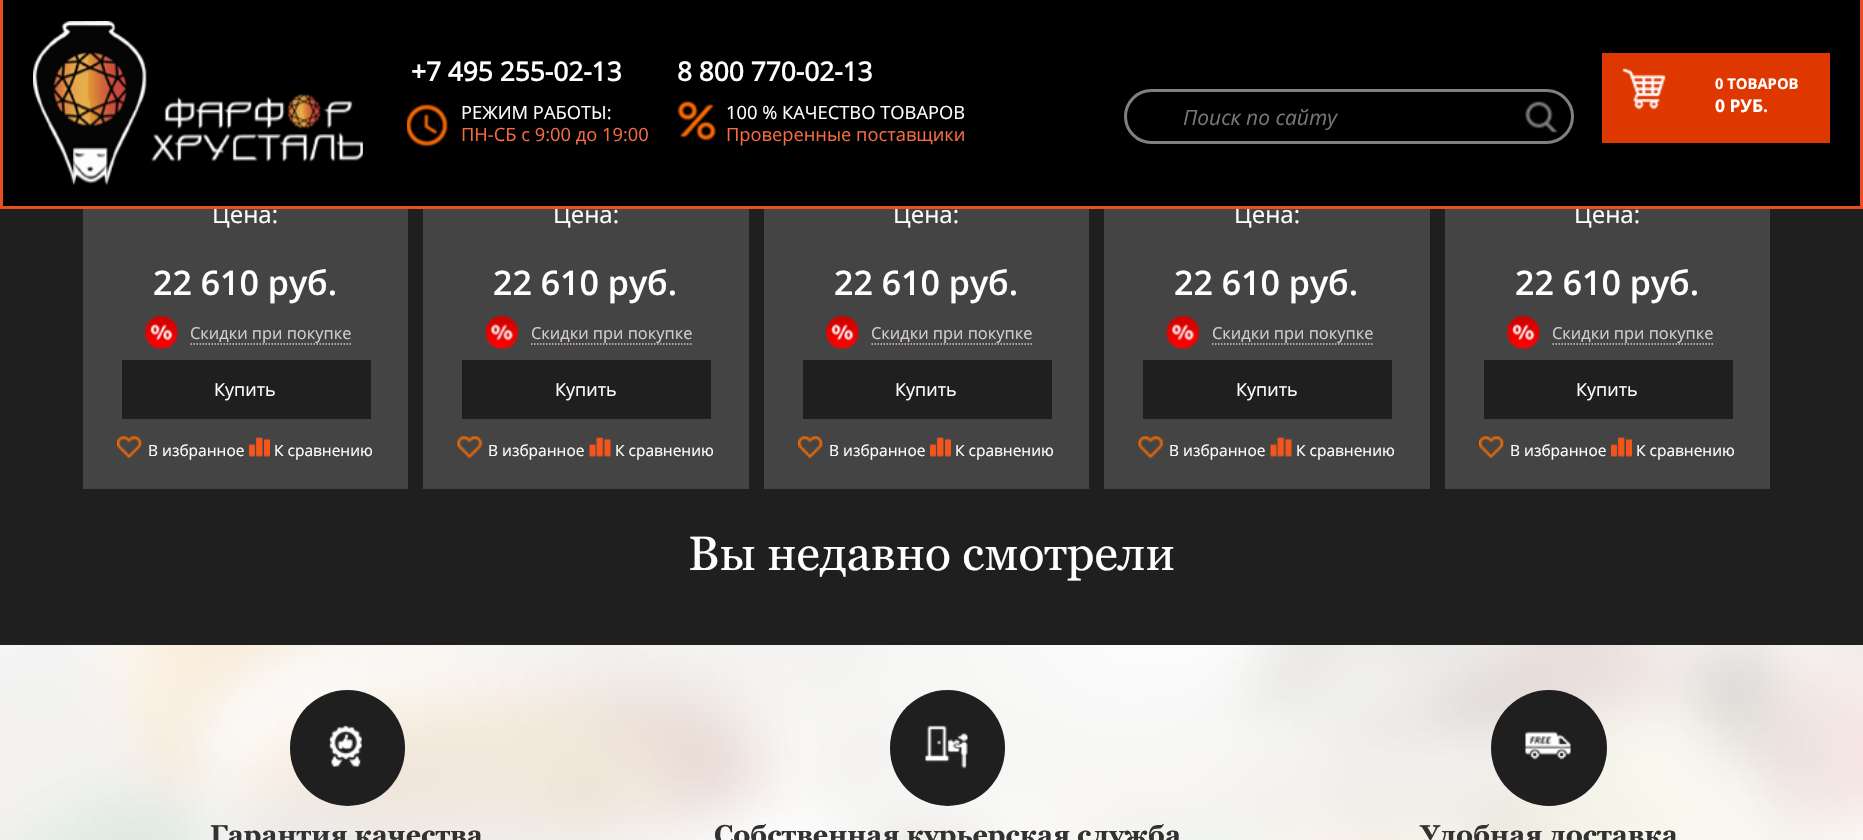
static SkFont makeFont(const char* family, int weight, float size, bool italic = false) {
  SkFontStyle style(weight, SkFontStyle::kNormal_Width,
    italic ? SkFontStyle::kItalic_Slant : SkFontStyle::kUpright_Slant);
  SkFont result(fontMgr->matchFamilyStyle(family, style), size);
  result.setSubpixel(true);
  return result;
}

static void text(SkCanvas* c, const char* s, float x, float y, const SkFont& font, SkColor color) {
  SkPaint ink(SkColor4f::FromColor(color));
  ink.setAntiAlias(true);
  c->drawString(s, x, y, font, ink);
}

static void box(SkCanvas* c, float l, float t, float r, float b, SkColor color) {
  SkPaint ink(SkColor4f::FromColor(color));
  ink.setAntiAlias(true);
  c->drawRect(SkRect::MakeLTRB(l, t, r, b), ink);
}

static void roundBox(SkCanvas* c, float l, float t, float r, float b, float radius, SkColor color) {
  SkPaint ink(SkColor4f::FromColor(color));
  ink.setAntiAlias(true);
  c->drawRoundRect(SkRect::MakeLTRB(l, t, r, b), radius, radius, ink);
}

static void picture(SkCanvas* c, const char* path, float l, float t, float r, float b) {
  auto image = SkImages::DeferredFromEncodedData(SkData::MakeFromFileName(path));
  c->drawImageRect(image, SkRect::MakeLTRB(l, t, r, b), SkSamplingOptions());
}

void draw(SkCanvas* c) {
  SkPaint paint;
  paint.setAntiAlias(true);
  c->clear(0xff1f1f1f);
  box(c, 83, 209, 408, 489, 0xff444444);
  SkFont face1 = makeFont("Open Sans", 400, 24);
  text(c, "Цена:", 212, 223, face1, 0xffffffff);
  box(c, 423, 209, 749, 489, 0xff444444);
  text(c, "Цена:", 553, 223, face1, 0xffffffff);
  box(c, 764, 209, 1089, 489, 0xff444444);
  text(c, "Цена:", 893, 223, face1, 0xffffffff);
  box(c, 1104, 209, 1430, 489, 0xff444444);
  text(c, "Цена:", 1234, 223, face1, 0xffffffff);
  box(c, 1445, 209, 1770, 489, 0xff444444);
  text(c, "Цена:", 1574, 223, face1, 0xffffffff);
  box(c, 3, 0, 1860, 206, 0xff000000);
  box(c, 1860, 0, 1863, 209, 0xffe7501e);
  box(c, 0, 206, 1863, 209, 0xffe7501e);
  box(c, 0, 0, 3, 209, 0xffe7501e);
  picture(c, "img_01.png", 33, 21, 363, 185);
  SkFont face2 = makeFont("Open Sans", 700, 26.25f);
  text(c, "+7 495 255-02-13", 411, 81, face2, 0xffffffff);
  picture(c, "img_02.png", 407, 104, 448, 147);
  SkFont face3 = makeFont("Open Sans", 400, 18.3f);
  text(c, "РЕЖИМ РАБОТЫ:", 461, 119, face3, 0xffffffff);
  text(c, "ПН-СБ с 9:00 до 19:00", 461, 141, face3, 0xfff76d40);
  text(c, "8 800 770-02-13", 677, 81, face2, 0xffffffff);
  picture(c, "img_03.png", 677, 101, 717, 141);
  text(c, "100 % КАЧЕСТВО ТОВАРОВ", 726, 119, face3, 0xffffffff);
  text(c, "Проверенные поставщики", 726, 141, face3, 0xfff76d40);
  box(c, 1602, 53, 1830, 143, 0xffde3700);
  picture(c, "img_04.png", 1622, 68, 1666, 110);
  SkFont face4 = makeFont("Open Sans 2", 700, 14.75f);
  text(c, "0 ТОВАРОВ", 1715, 89, face4, 0xffffffff);
  SkFont face5 = makeFont("Open Sans 2", 700, 17.5f);
  text(c, "0 РУБ.", 1715, 112, face5, 0xffffffff);
  paint.setStyle(SkPaint::kStroke_Style);
  paint.setStrokeWidth(3);
  paint.setColor(0xff808080);
  c->drawRoundRect(SkRect::MakeLTRB(1125.5f, 90.5f, 1572.5f, 142.5f), 26, 26, paint);
  SkFont face6 = makeFont("Open Sans", 400, 21, true);
  text(c, "Поиск по сайту", 1183, 125, face6, 0xff757575);
  picture(c, "img_05.png", 1525, 101, 1558, 133);
  SkFont face7 = makeFont("Open Sans", 600, 34);
  text(c, "22 610 руб.", 153, 295, face7, 0xffffffff);
  picture(c, "img_06.png", 145, 315, 178, 350);
  SkFont face8 = makeFont("Open Sans", 400, 16.4f);
  text(c, "Скидки при покупке", 190, 339, face8, 0xffd7cccc);
  paint.setStrokeWidth(1.5f);
  paint.setColor(0xffd7cccc);
  paint.setPathEffect(SkDashPathEffect::Make({{1.5f, 1.5f}}, 0));
  c->drawPath(SkPathBuilder().moveTo(190.5f, 344).lineTo(351, 344).detach(), paint);
  paint.setPathEffect(nullptr);
  box(c, 122, 360, 371, 419, 0xff1f1f1f);
  SkFont face9 = makeFont("Open Sans", 400, 18);
  text(c, "Купить", 214, 396, face9, 0xffffffff);
  picture(c, "img_07.png", 117, 436, 142, 459);
  SkFont face10 = makeFont("Open Sans", 400, 15.5f);
  text(c, "В избранное", 148, 456, face10, 0xffffffff);
  picture(c, "img_08.png", 249, 437, 270, 457);
  text(c, "К сравнению", 274, 456, face10, 0xffffffff);
  text(c, "22 610 руб.", 493, 295, face7, 0xffffffff);
  picture(c, "img_09.png", 485, 315, 519, 350);
  text(c, "Скидки при покупке", 531, 339, face8, 0xffd7cccc);
  paint.setPathEffect(SkDashPathEffect::Make({{1.5f, 1.5f}}, 0));
  c->drawPath(SkPathBuilder().moveTo(531, 344).lineTo(691.5f, 344).detach(), paint);
  paint.setPathEffect(nullptr);
  box(c, 462, 360, 711, 419, 0xff1f1f1f);
  text(c, "Купить", 555, 396, face9, 0xffffffff);
  picture(c, "img_10.png", 457, 436, 483, 459);
  text(c, "В избранное", 488, 456, face10, 0xffffffff);
  picture(c, "img_11.png", 589, 437, 611, 457);
  text(c, "К сравнению", 615, 456, face10, 0xffffffff);
  text(c, "22 610 руб.", 834, 295, face7, 0xffffffff);
  picture(c, "img_06.png", 826, 315, 859, 350);
  text(c, "Скидки при покупке", 871, 339, face8, 0xffd7cccc);
  paint.setPathEffect(SkDashPathEffect::Make({{1.5f, 1.5f}}, 0));
  c->drawPath(SkPathBuilder().moveTo(871.5f, 344).lineTo(1032, 344).detach(), paint);
  paint.setPathEffect(nullptr);
  box(c, 803, 360, 1052, 419, 0xff1f1f1f);
  text(c, "Купить", 895, 396, face9, 0xffffffff);
  picture(c, "img_07.png", 798, 436, 823, 459);
  text(c, "В избранное", 829, 456, face10, 0xffffffff);
  picture(c, "img_08.png", 930, 437, 951, 457);
  text(c, "К сравнению", 955, 456, face10, 0xffffffff);
  text(c, "22 610 руб.", 1174, 295, face7, 0xffffffff);
  picture(c, "img_12.png", 1166, 315, 1200, 350);
  text(c, "Скидки при покупке", 1212, 339, face8, 0xffd7cccc);
  paint.setPathEffect(SkDashPathEffect::Make({{1.5f, 1.5f}}, 0));
  c->drawPath(SkPathBuilder().moveTo(1212, 344).lineTo(1372.5f, 344).detach(), paint);
  paint.setPathEffect(nullptr);
  box(c, 1143, 360, 1392, 419, 0xff1f1f1f);
  text(c, "Купить", 1236, 396, face9, 0xffffffff);
  picture(c, "img_10.png", 1138, 436, 1164, 459);
  text(c, "В избранное", 1169, 456, face10, 0xffffffff);
  picture(c, "img_11.png", 1270, 437, 1292, 457);
  text(c, "К сравнению", 1296, 456, face10, 0xffffffff);
  text(c, "22 610 руб.", 1515, 295, face7, 0xffffffff);
  picture(c, "img_06.png", 1507, 315, 1540, 350);
  text(c, "Скидки при покупке", 1552, 339, face8, 0xffd7cccc);
  paint.setPathEffect(SkDashPathEffect::Make({{1.5f, 1.5f}}, 0));
  c->drawPath(SkPathBuilder().moveTo(1552.5f, 344).lineTo(1713, 344).detach(), paint);
  paint.setPathEffect(nullptr);
  box(c, 1484, 360, 1733, 419, 0xff1f1f1f);
  text(c, "Купить", 1576, 396, face9, 0xffffffff);
  picture(c, "img_07.png", 1479, 436, 1504, 459);
  text(c, "В избранное", 1510, 456, face10, 0xffffffff);
  picture(c, "img_08.png", 1611, 437, 1632, 457);
  text(c, "К сравнению", 1636, 456, face10, 0xffffffff);
  SkFont face11 = makeFont("Georgia", 400, 48);
  text(c, "Вы недавно смотрели", 688, 570, face11, 0xffffffff);
  picture(c, "img_13.png", 0, 645, 1863, 840);
  roundBox(c, 290, 690, 405, 806, 57.5f, 0xff1f1f1f);
  picture(c, "img_14.png", 329, 725, 362, 767);
  SkFont face12 = makeFont("Georgia", 700, 26.9f);
  text(c, "Гарантия качества", 210, 844, face12, 0xff323232);
  roundBox(c, 890, 690, 1005, 806, 57.5f, 0xff1f1f1f);
  picture(c, "img_15.png", 925, 725, 968, 769);
  text(c, "Собственная курьерская служба", 714, 844, face12, 0xff323232);
  paint.setStyle(SkPaint::kFill_Style);
  paint.setColor(0xff1f1f1f);
  c->drawCircle(1549, 748, 58, paint);
  picture(c, "img_16.png", 1525, 731, 1571, 760);
  text(c, "Удобная доставка", 1420, 844, face12, 0xff323232);
}
